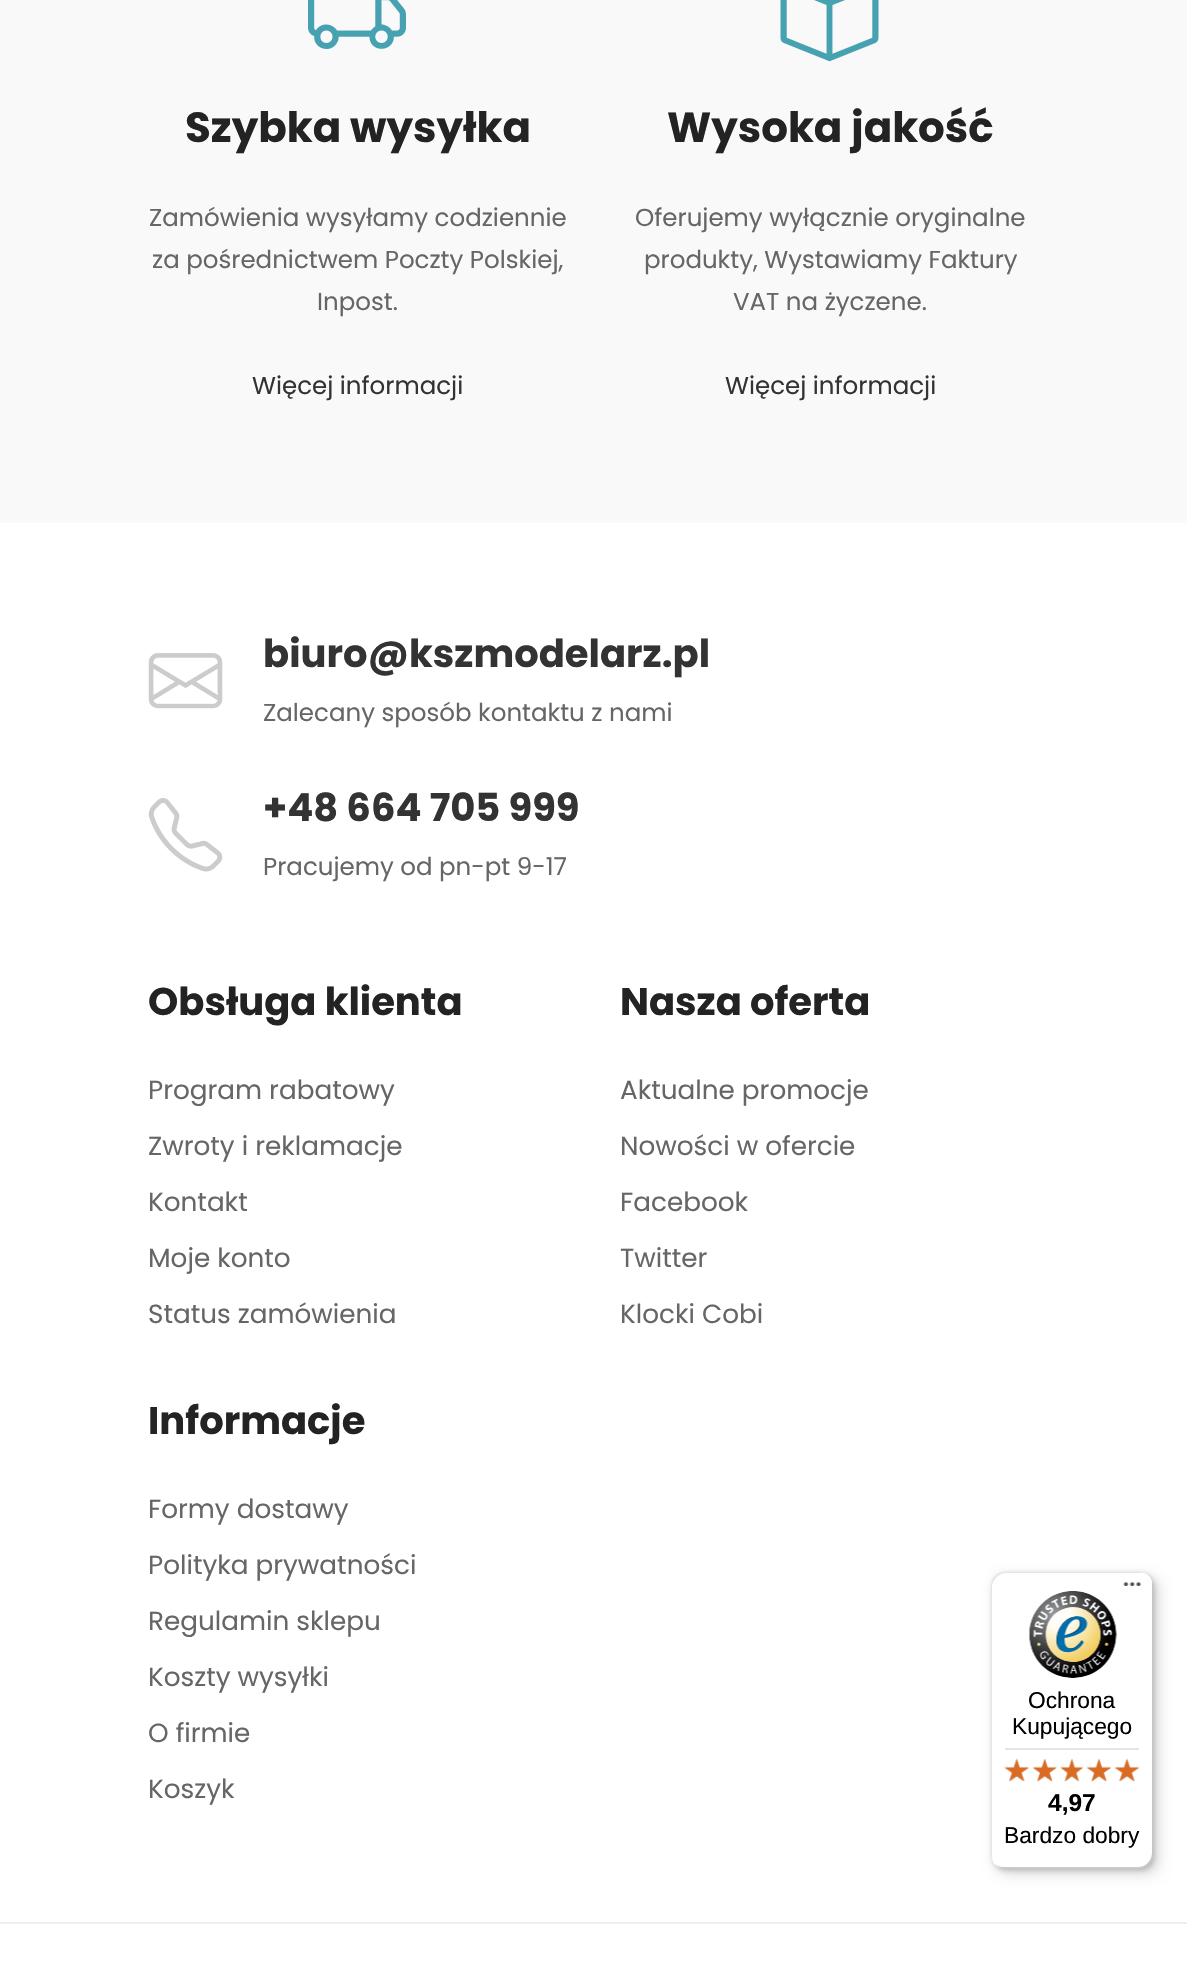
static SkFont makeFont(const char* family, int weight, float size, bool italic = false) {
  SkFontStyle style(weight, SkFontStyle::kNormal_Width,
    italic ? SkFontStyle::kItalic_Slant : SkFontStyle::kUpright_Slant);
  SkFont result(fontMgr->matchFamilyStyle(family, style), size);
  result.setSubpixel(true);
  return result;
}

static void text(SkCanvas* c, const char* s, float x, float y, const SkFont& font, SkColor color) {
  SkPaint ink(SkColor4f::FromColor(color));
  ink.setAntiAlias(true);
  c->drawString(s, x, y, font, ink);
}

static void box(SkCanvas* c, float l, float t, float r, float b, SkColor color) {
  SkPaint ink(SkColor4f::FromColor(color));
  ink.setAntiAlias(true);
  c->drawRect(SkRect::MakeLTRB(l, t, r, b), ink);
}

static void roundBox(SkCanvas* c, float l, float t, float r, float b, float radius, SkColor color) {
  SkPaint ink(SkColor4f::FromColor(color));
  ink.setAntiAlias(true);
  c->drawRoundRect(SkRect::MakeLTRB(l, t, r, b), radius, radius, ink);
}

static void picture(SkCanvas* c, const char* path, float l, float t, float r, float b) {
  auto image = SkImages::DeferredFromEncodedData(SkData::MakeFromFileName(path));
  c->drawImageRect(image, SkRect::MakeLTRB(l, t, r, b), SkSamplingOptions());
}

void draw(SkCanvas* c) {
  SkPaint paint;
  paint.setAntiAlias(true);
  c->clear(0xffffffff);
  box(c, 0, 0, 1187, 523, 0xfff9f9f9);
  picture(c, "img_01.png", 308, 0, 406, 49);
  SkFont face1 = makeFont("Poppins", 700, 42);
  text(c, "Szybka wysyłka", 185, 142, face1, 0xff232323);
  SkFont face2 = makeFont("Poppins", 400, 24.5f);
  text(c, "Zamówienia wysyłamy codziennie", 149, 226, face2, 0xff666666);
  text(c, "za pośrednictwem Poczty Polskiej,", 152, 268, face2, 0xff666666);
  text(c, "Inpost.", 317, 310, face2, 0xff666666);
  text(c, "Więcej informacji", 252, 394, face2, 0xff333333);
  picture(c, "img_02.png", 780, 0, 879, 62);
  text(c, "Wysoka jakość", 667, 142, face1, 0xff232323);
  text(c, "Oferujemy wyłącznie oryginalne", 635, 226, face2, 0xff666666);
  text(c, "produkty, Wystawiamy Faktury", 644, 268, face2, 0xff666666);
  text(c, "VAT na życzene.", 733, 310, face2, 0xff666666);
  text(c, "Więcej informacji", 725, 394, face2, 0xff333333);
  box(c, 0, 1922, 1187, 1924, 0xffeeeeee);
  picture(c, "img_03.png", 148, 653, 223, 709);
  SkFont face3 = makeFont("Poppins", 700, 38.5f);
  text(c, "biuro@kszmodelarz.pl", 263, 667, face3, 0xff333333);
  text(c, "Zalecany sposób kontaktu z nami", 263, 721, face2, 0xff666666);
  picture(c, "img_04.png", 148, 798, 223, 872);
  text(c, "+48 664 705 999", 263, 821, face3, 0xff333333);
  text(c, "Pracujemy od pn-pt 9-17", 263, 875, face2, 0xff666666);
  text(c, "Obsługa klienta", 148, 1015, face3, 0xff232323);
  SkFont face4 = makeFont("Poppins", 400, 26.25f);
  text(c, "Program rabatowy", 148, 1099, face4, 0xff666666);
  text(c, "Zwroty i reklamacje", 148, 1155, face4, 0xff666666);
  text(c, "Kontakt", 148, 1211, face4, 0xff666666);
  text(c, "Moje konto", 148, 1267, face4, 0xff666666);
  text(c, "Status zamówienia", 148, 1323, face4, 0xff666666);
  text(c, "Nasza oferta", 620, 1015, face3, 0xff232323);
  text(c, "Aktualne promocje", 620, 1099, face4, 0xff666666);
  text(c, "Nowości w ofercie", 620, 1155, face4, 0xff666666);
  text(c, "Facebook", 620, 1211, face4, 0xff666666);
  text(c, "Twitter", 620, 1267, face4, 0xff666666);
  text(c, "Klocki Cobi", 620, 1323, face4, 0xff666666);
  text(c, "Informacje", 148, 1434, face3, 0xff232323);
  text(c, "Formy dostawy", 148, 1518, face4, 0xff666666);
  text(c, "Polityka prywatności", 148, 1574, face4, 0xff666666);
  text(c, "Regulamin sklepu", 148, 1630, face4, 0xff666666);
  text(c, "Koszty wysyłki", 148, 1686, face4, 0xff666666);
  text(c, "O firmie", 148, 1742, face4, 0xff666666);
  text(c, "Koszyk", 148, 1798, face4, 0xff666666);
  paint.setColor(0x26000000);
  paint.setMaskFilter(SkMaskFilter::MakeBlur(kNormal_SkBlurStyle, 7));
  c->drawRoundRect(SkRect::MakeLTRB(996, 1577, 1159, 1874), 14, 14, paint);
  paint.setMaskFilter(nullptr);
  paint.setMaskFilter(SkMaskFilter::MakeBlur(kNormal_SkBlurStyle, 2));
  c->drawRoundRect(SkRect::MakeLTRB(992, 1573, 1155, 1871), 14, 14, paint);
  paint.setMaskFilter(nullptr);
  roundBox(c, 991, 1572, 1153, 1869, 14, 0xffffffff);
  paint.setColor(0xffe5e5e5);
  c->drawPath(SkPathBuilder().moveTo(1006, 1573).lineTo(1141, 1573).cubicTo(1143, 1573, 1145, 1573, 1146, 1574).cubicTo(1144, 1573, 1142, 1572, 1139, 1572).lineTo(1005, 1572).cubicTo(997, 1572, 991, 1578, 991, 1586).lineTo(991, 1855).cubicTo(991, 1858, 992, 1861, 994, 1864).cubicTo(993, 1862, 992, 1859, 992, 1857).lineTo(992, 1587).cubicTo(992, 1580, 999, 1573, 1006, 1573).close().detach(), paint);
  paint.setColor(0x33000000);
  c->drawPath(SkPathBuilder().moveTo(995, 1864).cubicTo(997, 1867, 1001, 1869, 1005, 1869).lineTo(1139, 1869).cubicTo(1147, 1869, 1153, 1863, 1153, 1855).lineTo(1153, 1586).cubicTo(1153, 1583, 1152, 1581, 1151, 1579).cubicTo(1152, 1580, 1152, 1582, 1152, 1584).lineTo(1152, 1853).cubicTo(1152, 1861, 1145, 1867, 1138, 1867).lineTo(1003, 1867).cubicTo(1000, 1867, 997, 1866, 995, 1864).close().detach(), paint);
  paint.setColor(0x33323232);
  c->drawPath(SkPathBuilder().moveTo(997, 1867).cubicTo(999, 1868, 1002, 1869, 1005, 1869).lineTo(1139, 1869).cubicTo(1147, 1869, 1153, 1863, 1153, 1855).lineTo(1153, 1586).cubicTo(1153, 1583, 1152, 1580, 1151, 1578).cubicTo(1152, 1580, 1152, 1582, 1152, 1584).lineTo(1152, 1854).cubicTo(1152, 1862, 1146, 1868, 1138, 1868).lineTo(1003, 1868).cubicTo(1001, 1868, 999, 1868, 997, 1867).close().detach(), paint);
  paint.setColor(0x4dffffff);
  c->drawPath(SkPathBuilder().moveTo(996, 1865).cubicTo(998, 1868, 1001, 1869, 1005, 1869).lineTo(1139, 1869).cubicTo(1147, 1869, 1153, 1863, 1153, 1855).lineTo(1153, 1586).cubicTo(1153, 1582, 1152, 1579, 1149, 1577).cubicTo(1151, 1579, 1152, 1582, 1152, 1585).lineTo(1152, 1854).cubicTo(1152, 1862, 1146, 1868, 1138, 1868).lineTo(1004, 1868).cubicTo(1001, 1868, 998, 1867, 996, 1865).close().detach(), paint);
  picture(c, "img_05.png", 1123, 1582, 1141, 1586);
  picture(c, "img_06.png", 1029, 1591, 1117, 1678);
  SkFont face5 = makeFont("Liberation Sans", 400, 22.75f);
  text(c, "Ochrona", 1028, 1708, face5, 0xff000000);
  text(c, "Kupującego", 1012, 1734, face5, 0xff000000);
  box(c, 1005, 1748, 1139, 1750, 0xffe5e5e5);
  picture(c, "img_12.png", 1004, 1759, 1029, 1781);
  picture(c, "img_07.png", 1004, 1758, 1029, 1782);
  picture(c, "img_13.png", 1033, 1759, 1057, 1782);
  picture(c, "img_08.png", 1032, 1758, 1057, 1782);
  picture(c, "img_14.png", 1060, 1759, 1083, 1781);
  picture(c, "img_09.png", 1060, 1758, 1084, 1782);
  picture(c, "img_15.png", 1087, 1759, 1111, 1781);
  picture(c, "img_10.png", 1086, 1758, 1111, 1782);
  picture(c, "img_16.png", 1115, 1759, 1139, 1781);
  picture(c, "img_11.png", 1114, 1758, 1140, 1782);
  SkFont face6 = makeFont("Liberation Sans", 700, 24.5f);
  text(c, "4,97", 1048, 1811, face6, 0xff000000);
  text(c, "Bardzo dobry", 1004, 1843, face5, 0xff000000);
}
